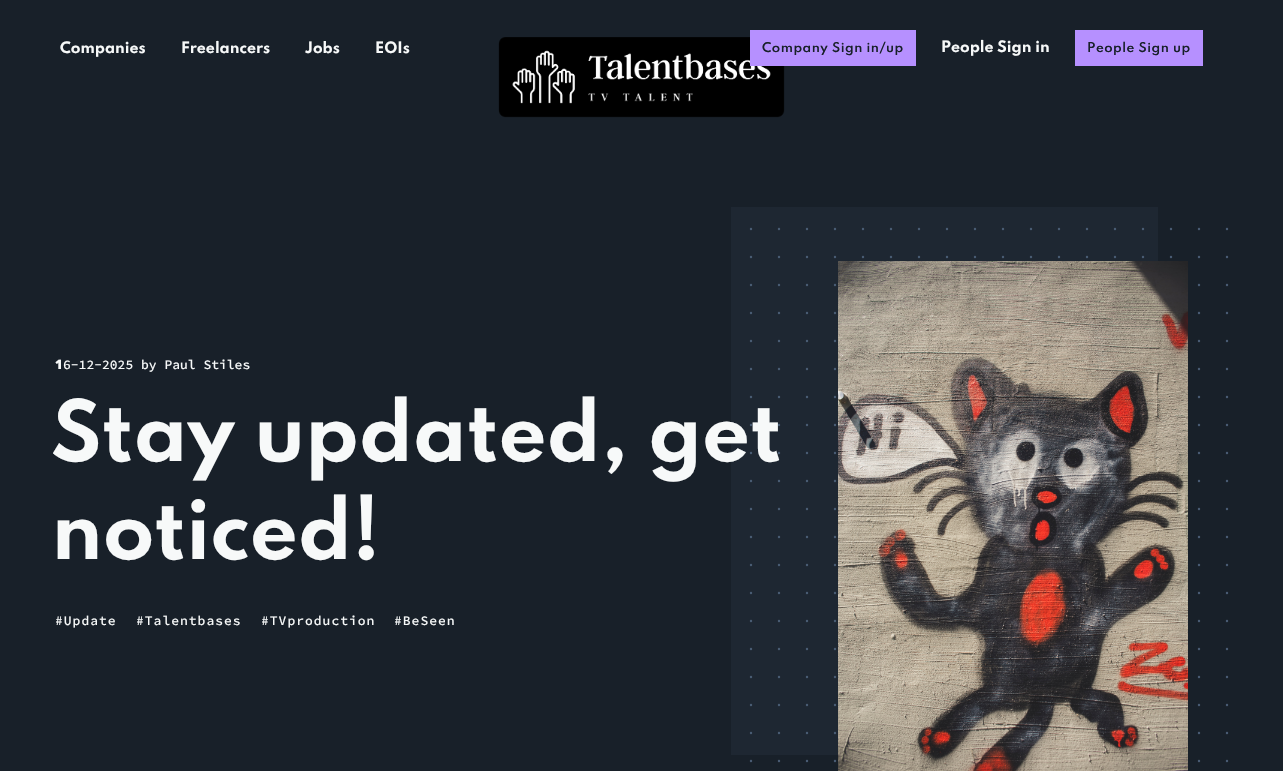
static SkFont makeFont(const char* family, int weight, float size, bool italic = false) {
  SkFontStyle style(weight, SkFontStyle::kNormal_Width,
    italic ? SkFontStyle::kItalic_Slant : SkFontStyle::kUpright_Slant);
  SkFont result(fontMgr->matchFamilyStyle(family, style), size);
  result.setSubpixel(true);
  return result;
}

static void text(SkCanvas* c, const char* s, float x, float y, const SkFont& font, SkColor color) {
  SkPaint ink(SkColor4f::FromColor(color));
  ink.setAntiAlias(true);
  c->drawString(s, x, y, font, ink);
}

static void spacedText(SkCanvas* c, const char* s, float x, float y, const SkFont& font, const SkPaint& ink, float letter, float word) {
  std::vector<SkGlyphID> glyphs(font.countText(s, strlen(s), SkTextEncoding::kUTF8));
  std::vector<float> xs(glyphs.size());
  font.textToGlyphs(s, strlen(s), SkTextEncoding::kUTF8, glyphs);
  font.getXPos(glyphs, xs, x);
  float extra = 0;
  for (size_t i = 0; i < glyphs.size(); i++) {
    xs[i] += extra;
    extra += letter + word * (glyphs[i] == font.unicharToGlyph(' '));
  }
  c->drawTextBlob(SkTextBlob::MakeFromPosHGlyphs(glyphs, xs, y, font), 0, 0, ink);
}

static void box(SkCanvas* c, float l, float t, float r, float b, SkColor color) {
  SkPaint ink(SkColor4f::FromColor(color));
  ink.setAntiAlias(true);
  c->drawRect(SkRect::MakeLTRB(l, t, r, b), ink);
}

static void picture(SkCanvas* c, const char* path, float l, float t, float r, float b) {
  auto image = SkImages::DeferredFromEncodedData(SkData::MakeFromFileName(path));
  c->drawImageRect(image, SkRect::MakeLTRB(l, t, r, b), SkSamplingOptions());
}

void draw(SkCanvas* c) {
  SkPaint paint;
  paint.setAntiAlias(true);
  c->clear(0xff182029);
  picture(c, "img_01.png", 498, 37, 785, 118);
  SkFont face1 = makeFont("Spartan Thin", 700, 14);
  text(c, "Companies", 60, 53, face1, 0xfff7f9f9);
  text(c, "Freelancers", 181, 53, face1, 0xfff7f9f9);
  text(c, "Jobs", 305, 53, face1, 0xfff7f9f9);
  text(c, "EOIs", 375, 53, face1, 0xfff7f9f9);
  box(c, 750, 30, 916, 66, 0xffb690ff);
  SkFont face2 = makeFont("Spartan Thin", 600, 12);
  paint.setColor(0xff182029);
  spacedText(c, "Company Sign in/up", 762, 52, face2, paint, 0.5f, 0);
  text(c, "People Sign in", 941, 52, face1, 0xfff7f9f9);
  box(c, 1075, 30, 1203, 66, 0xffb690ff);
  spacedText(c, "People Sign up", 1087, 52, face2, paint, 0.5f, 0);
  box(c, 731, 207, 1158, 755, 0xff1e2732);
  paint.setStyle(SkPaint::kStroke_Style);
  paint.setStrokeWidth(2.4f);
  paint.setStrokeCap(SkPaint::kRound_Cap);
  paint.setColor(0xff485b73);
  paint.setPathEffect(SkDashPathEffect::Make({{0, 28}}, 0));
  c->drawPath(SkPathBuilder().moveTo(751, 229).lineTo(751, 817.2f).detach(), paint);
  paint.setPathEffect(nullptr);
  paint.setPathEffect(SkDashPathEffect::Make({{0, 28}}, 0));
  c->drawPath(SkPathBuilder().moveTo(779, 229).lineTo(779, 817.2f).detach(), paint);
  paint.setPathEffect(nullptr);
  paint.setPathEffect(SkDashPathEffect::Make({{0, 28}}, 0));
  c->drawPath(SkPathBuilder().moveTo(807, 229).lineTo(807, 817.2f).detach(), paint);
  paint.setPathEffect(nullptr);
  paint.setPathEffect(SkDashPathEffect::Make({{0, 28}}, 0));
  c->drawPath(SkPathBuilder().moveTo(835, 229).lineTo(835, 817.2f).detach(), paint);
  paint.setPathEffect(nullptr);
  paint.setPathEffect(SkDashPathEffect::Make({{0, 28}}, 0));
  c->drawPath(SkPathBuilder().moveTo(863, 229).lineTo(863, 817.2f).detach(), paint);
  paint.setPathEffect(nullptr);
  paint.setPathEffect(SkDashPathEffect::Make({{0, 28}}, 0));
  c->drawPath(SkPathBuilder().moveTo(891, 229).lineTo(891, 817.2f).detach(), paint);
  paint.setPathEffect(nullptr);
  paint.setPathEffect(SkDashPathEffect::Make({{0, 28}}, 0));
  c->drawPath(SkPathBuilder().moveTo(919, 229).lineTo(919, 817.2f).detach(), paint);
  paint.setPathEffect(nullptr);
  paint.setPathEffect(SkDashPathEffect::Make({{0, 28}}, 0));
  c->drawPath(SkPathBuilder().moveTo(947, 229).lineTo(947, 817.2f).detach(), paint);
  paint.setPathEffect(nullptr);
  paint.setPathEffect(SkDashPathEffect::Make({{0, 28}}, 0));
  c->drawPath(SkPathBuilder().moveTo(975, 229).lineTo(975, 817.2f).detach(), paint);
  paint.setPathEffect(nullptr);
  paint.setPathEffect(SkDashPathEffect::Make({{0, 28}}, 0));
  c->drawPath(SkPathBuilder().moveTo(1003, 229).lineTo(1003, 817.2f).detach(), paint);
  paint.setPathEffect(nullptr);
  paint.setPathEffect(SkDashPathEffect::Make({{0, 28}}, 0));
  c->drawPath(SkPathBuilder().moveTo(1031, 229).lineTo(1031, 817.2f).detach(), paint);
  paint.setPathEffect(nullptr);
  paint.setPathEffect(SkDashPathEffect::Make({{0, 28}}, 0));
  c->drawPath(SkPathBuilder().moveTo(1059, 229).lineTo(1059, 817.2f).detach(), paint);
  paint.setPathEffect(nullptr);
  paint.setPathEffect(SkDashPathEffect::Make({{0, 28}}, 0));
  c->drawPath(SkPathBuilder().moveTo(1087, 229).lineTo(1087, 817.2f).detach(), paint);
  paint.setPathEffect(nullptr);
  paint.setPathEffect(SkDashPathEffect::Make({{0, 28}}, 0));
  c->drawPath(SkPathBuilder().moveTo(1115, 229).lineTo(1115, 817.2f).detach(), paint);
  paint.setPathEffect(nullptr);
  paint.setPathEffect(SkDashPathEffect::Make({{0, 28}}, 0));
  c->drawPath(SkPathBuilder().moveTo(1143, 229).lineTo(1143, 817.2f).detach(), paint);
  paint.setPathEffect(nullptr);
  paint.setPathEffect(SkDashPathEffect::Make({{0, 28}}, 0));
  c->drawPath(SkPathBuilder().moveTo(1171, 229).lineTo(1171, 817.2f).detach(), paint);
  paint.setPathEffect(nullptr);
  paint.setPathEffect(SkDashPathEffect::Make({{0, 28}}, 0));
  c->drawPath(SkPathBuilder().moveTo(1199, 229).lineTo(1199, 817.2f).detach(), paint);
  paint.setPathEffect(nullptr);
  paint.setPathEffect(SkDashPathEffect::Make({{0, 28}}, 0));
  c->drawPath(SkPathBuilder().moveTo(1227, 229).lineTo(1227, 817.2f).detach(), paint);
  paint.setPathEffect(nullptr);
  SkFont face3 = makeFont("Noto Sans", 900, 13);
  text(c, "1", 55, 369, face3, 0xfff7f9f9);
  SkFont face4 = makeFont("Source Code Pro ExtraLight", 200, 13);
  text(c, "6-12-2025 by Paul Stiles", 63, 369, face4, 0xfff7f9f9);
  SkFont face5 = makeFont("Spartan Thin", 700, 75);
  paint.setStyle(SkPaint::kFill_Style);
  paint.setColor(0xfff7f9f9);
  spacedText(c, "Stay updated, get", 51, 461, face5, paint, -0.5f, 0);
  spacedText(c, "noticed!", 51, 559, face5, paint, -0.5f, 0);
  spacedText(c, "#Update", 55, 625, face4, paint, 1, 0);
  spacedText(c, "#Talentbases", 136, 625, face4, paint, 1, 0);
  spacedText(c, "#TVproduction", 261, 625, face4, paint, 1, 0);
  spacedText(c, "#BeSeen", 394, 625, face4, paint, 1, 0);
  picture(c, "img_02.png", 838, 261, 1188, 771);
}
